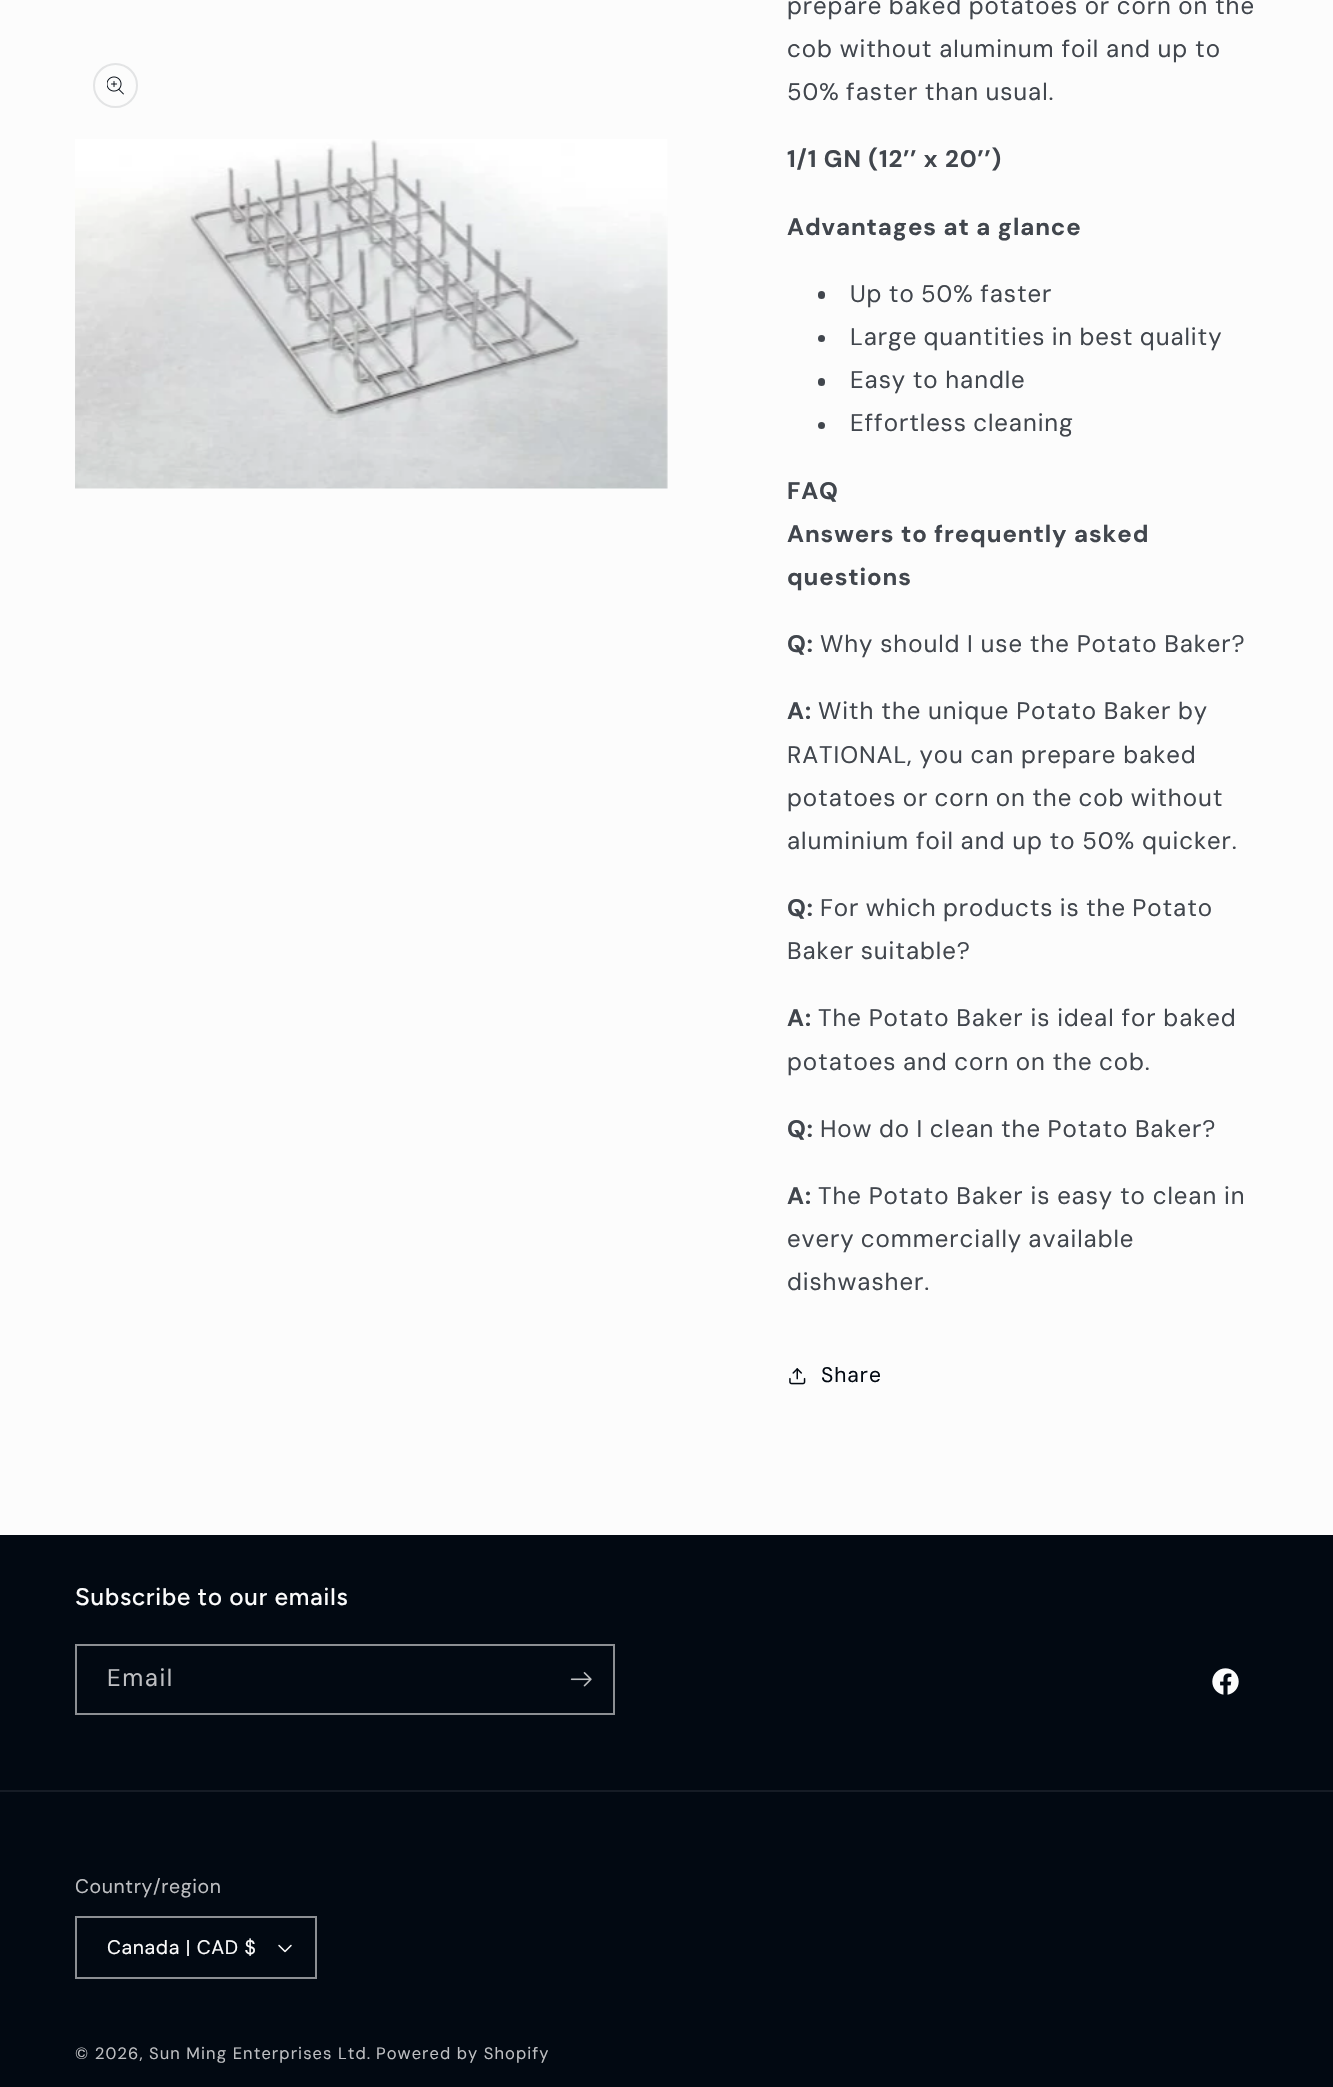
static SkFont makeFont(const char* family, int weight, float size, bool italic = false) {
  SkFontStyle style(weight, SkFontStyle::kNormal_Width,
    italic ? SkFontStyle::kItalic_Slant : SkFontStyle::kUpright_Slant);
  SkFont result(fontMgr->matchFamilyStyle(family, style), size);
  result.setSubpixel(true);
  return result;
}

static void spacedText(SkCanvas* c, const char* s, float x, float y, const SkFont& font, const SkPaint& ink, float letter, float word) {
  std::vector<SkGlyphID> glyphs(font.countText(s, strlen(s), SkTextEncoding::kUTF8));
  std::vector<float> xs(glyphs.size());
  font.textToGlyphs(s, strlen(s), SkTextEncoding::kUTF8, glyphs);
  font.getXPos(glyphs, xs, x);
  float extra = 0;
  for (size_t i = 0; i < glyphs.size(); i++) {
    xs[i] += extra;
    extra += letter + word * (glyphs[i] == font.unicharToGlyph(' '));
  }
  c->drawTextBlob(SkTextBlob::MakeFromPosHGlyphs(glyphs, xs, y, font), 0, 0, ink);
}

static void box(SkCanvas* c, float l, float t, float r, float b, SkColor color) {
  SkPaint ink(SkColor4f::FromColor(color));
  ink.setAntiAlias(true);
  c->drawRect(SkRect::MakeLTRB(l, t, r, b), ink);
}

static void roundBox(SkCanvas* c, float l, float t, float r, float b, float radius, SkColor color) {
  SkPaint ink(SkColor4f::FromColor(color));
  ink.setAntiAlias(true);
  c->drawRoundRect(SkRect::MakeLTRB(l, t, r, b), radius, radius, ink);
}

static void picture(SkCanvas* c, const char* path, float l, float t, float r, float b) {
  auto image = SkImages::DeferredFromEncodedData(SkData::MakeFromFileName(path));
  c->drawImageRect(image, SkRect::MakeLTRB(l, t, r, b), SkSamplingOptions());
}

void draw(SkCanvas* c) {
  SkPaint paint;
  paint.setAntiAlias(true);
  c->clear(0xfffcfcfc);
  paint.setStyle(SkPaint::kStroke_Style);
  paint.setStrokeWidth(2);
  paint.setColor(0xffe3e4e5);
  c->drawCircle(115.5f, 85.5f, 21.5f, paint);
  picture(c, "img_01.png", 107, 76, 124, 95);
  picture(c, "img_02.png", 75, 139, 668, 489);
  SkFont face1 = makeFont("DM Sans", 400, 24);
  paint.setStyle(SkPaint::kFill_Style);
  paint.setColor(0xff41464d);
  spacedText(c, "prepare baked potatoes or corn on the", 787, 14, face1, paint, 0.9f, -0.75f);
  spacedText(c, "cob without aluminum foil and up to", 787, 57, face1, paint, 0.9f, -0.5f);
  spacedText(c, "50% faster than usual.", 787, 100, face1, paint, 0.9f, -1);
  SkFont face2 = makeFont("DM Sans", 700, 24);
  spacedText(c, "1/1 GN (12’’ x 20’’)", 787, 167, face2, paint, 0.9f, 0);
  spacedText(c, "Advantages at a glance", 787, 235, face2, paint, 0.9f, 0);
  roundBox(c, 818, 291, 825, 299, 3.5f, 0xff41464d);
  spacedText(c, "Up to 50% faster", 850, 302, face1, paint, 0.9f, -1);
  c->drawCircle(821.5f, 338.5f, 3.5f, paint);
  spacedText(c, "Large quantities in best quality", 850, 345, face1, paint, 0.9f, -1);
  roundBox(c, 818, 378, 825, 386, 3.5f, 0xff41464d);
  spacedText(c, "Easy to handle", 850, 388, face1, paint, 0.9f, -0.75f);
  c->drawCircle(821.5f, 425.5f, 3.5f, paint);
  spacedText(c, "Effortless cleaning", 850, 431, face1, paint, 0.9f, -1);
  spacedText(c, "FAQ", 787, 499, face2, paint, 0.9f, 0);
  spacedText(c, "Answers to frequently asked", 787, 542, face2, paint, 0.9f, 0);
  spacedText(c, "questions", 787, 585, face2, paint, 0.9f, 0);
  spacedText(c, "Q:", 787, 652, face2, paint, 0.9f, 0);
  spacedText(c, "Why should I use the Potato Baker?", 820, 652, face1, paint, 0.9f, -0.5f);
  spacedText(c, "A:", 787, 719, face2, paint, 0.9f, 0);
  spacedText(c, "With the unique Potato Baker by", 818, 719, face1, paint, 0.9f, -0.5f);
  spacedText(c, "RATIONAL, you can prepare baked", 787, 763, face1, paint, 0.9f, -0.5f);
  spacedText(c, "potatoes or corn on the cob without", 787, 806, face1, paint, 0.9f, -1);
  spacedText(c, "aluminium foil and up to 50% quicker.", 787, 849, face1, paint, 0.9f, -0.5f);
  spacedText(c, "Q:", 787, 916, face2, paint, 0.9f, 0);
  spacedText(c, "For which products is the Potato", 820, 916, face1, paint, 0.9f, -1);
  spacedText(c, "Baker suitable?", 787, 959, face1, paint, 0.9f, -1);
  spacedText(c, "A:", 787, 1026, face2, paint, 0.9f, 0);
  spacedText(c, "The Potato Baker is ideal for baked", 818, 1026, face1, paint, 0.9f, -0.5f);
  spacedText(c, "potatoes and corn on the cob.", 787, 1070, face1, paint, 0.9f, -0.75f);
  spacedText(c, "Q:", 787, 1137, face2, paint, 0.9f, 0);
  spacedText(c, "How do I clean the Potato Baker?", 820, 1137, face1, paint, 0.9f, -0.75f);
  spacedText(c, "A:", 787, 1204, face2, paint, 0.9f, 0);
  spacedText(c, "The Potato Baker is easy to clean in", 818, 1204, face1, paint, 0.9f, -0.5f);
  spacedText(c, "every commercially available", 787, 1247, face1, paint, 0.9f, -1);
  spacedText(c, "dishwasher.", 787, 1290, face1, paint, 0.9f, 0);
  picture(c, "img_03.png", 789, 1368, 806, 1385);
  SkFont face3 = makeFont("DM Sans", 400, 21);
  paint.setColor(0xff020912);
  spacedText(c, "Share", 821, 1382, face3, paint, 0.9f, 0);
  box(c, 0, 1535, 1333, 2087, 0xff020912);
  SkFont face4 = makeFont("Figtree", 500, 24);
  paint.setColor(0xfffcfcfc);
  spacedText(c, "Subscribe to our emails", 75, 1605, face4, paint, 0.9f, 0);
  paint.setStyle(SkPaint::kStroke_Style);
  paint.setColor(0xff8c8f93);
  c->drawRect(SkRect::MakeLTRB(76, 1645, 614, 1714), paint);
  paint.setStyle(SkPaint::kFill_Style);
  paint.setColor(0xffbebfc2);
  spacedText(c, "Email", 107, 1686, face1, paint, 1.5f, 0);
  picture(c, "img_04.png", 570, 1672, 592, 1687);
  picture(c, "img_05.png", 1212, 1668, 1239, 1695);
  box(c, 0, 1790, 1333, 1792, 0xff161c25);
  SkFont face5 = makeFont("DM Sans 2", 400, 19.5f);
  spacedText(c, "Country/region", 75, 1893, face5, paint, 0.6f, 0);
  picture(c, "img_06.png", 278, 1944, 292, 1953);
  paint.setStyle(SkPaint::kStroke_Style);
  paint.setColor(0xff8c8f93);
  c->drawRect(SkRect::MakeLTRB(76, 1917, 316, 1978), paint);
  paint.setStyle(SkPaint::kFill_Style);
  paint.setColor(0xfffcfcfc);
  spacedText(c, "Canada | CAD $", 107, 1954, face5, paint, 0.6f, 0);
  SkFont face6 = makeFont("DM Sans", 400, 16.5f);
  paint.setColor(0xffbebfc2);
  spacedText(c, "© 2026,", 75, 2059, face6, paint, 1.05f, 0);
  spacedText(c, "Sun Ming Enterprises Ltd.", 149, 2059, face6, paint, 1.05f, 0);
  spacedText(c, "Powered by Shopify", 376, 2059, face6, paint, 1.05f, 0);
}
